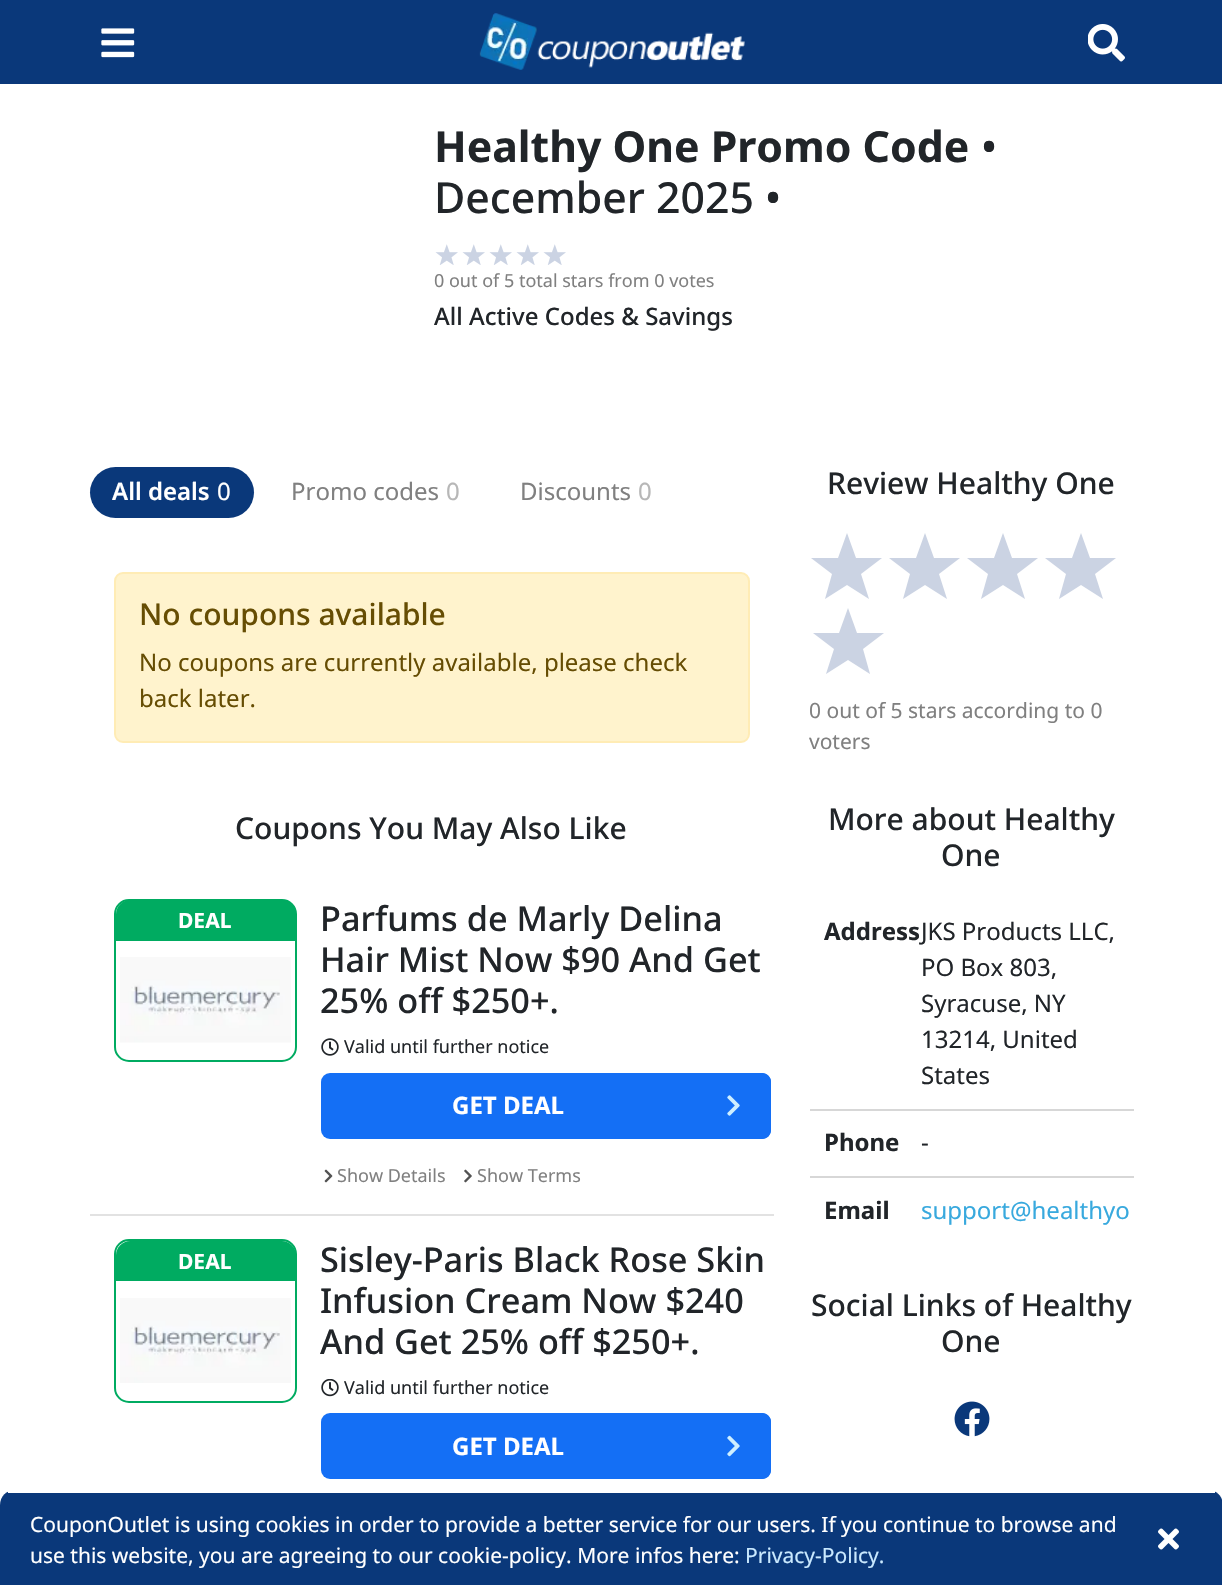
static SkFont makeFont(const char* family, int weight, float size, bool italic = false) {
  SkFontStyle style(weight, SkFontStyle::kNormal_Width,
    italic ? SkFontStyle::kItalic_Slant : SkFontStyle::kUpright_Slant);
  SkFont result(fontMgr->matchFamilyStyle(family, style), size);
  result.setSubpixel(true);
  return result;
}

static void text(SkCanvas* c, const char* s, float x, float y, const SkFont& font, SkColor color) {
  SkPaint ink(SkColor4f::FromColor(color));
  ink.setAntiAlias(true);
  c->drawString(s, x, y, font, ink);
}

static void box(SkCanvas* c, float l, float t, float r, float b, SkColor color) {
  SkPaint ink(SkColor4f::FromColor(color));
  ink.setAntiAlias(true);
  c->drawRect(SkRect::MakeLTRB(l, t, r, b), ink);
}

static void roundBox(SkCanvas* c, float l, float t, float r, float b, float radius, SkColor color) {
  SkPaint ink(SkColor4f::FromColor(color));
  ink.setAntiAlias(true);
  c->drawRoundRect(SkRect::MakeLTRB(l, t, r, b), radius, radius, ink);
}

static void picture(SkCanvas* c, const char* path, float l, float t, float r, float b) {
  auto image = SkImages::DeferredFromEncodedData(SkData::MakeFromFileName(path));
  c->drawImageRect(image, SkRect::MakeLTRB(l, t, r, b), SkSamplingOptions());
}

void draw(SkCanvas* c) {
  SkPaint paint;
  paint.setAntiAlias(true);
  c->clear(0xffffffff);
  box(c, 0, 0, 1222, 84, 0xff0a387a);
  picture(c, "img_01.png", 101, 28, 135, 58);
  picture(c, "img_02.png", 479, 13, 745, 70);
  picture(c, "img_03.png", 1088, 24, 1125, 62);
  SkFont face1 = makeFont("Noto Sans", 700, 42.75f);
  text(c, "Healthy One Promo Code", 434, 162, face1, 0xff212529);
  SkFont face2 = makeFont("Noto Sans", 500, 42.75f);
  text(c, "•", 981, 162, face2, 0xff212529);
  text(c, "December 2025 •", 434, 213, face2, 0xff212529);
  picture(c, "img_04.png", 435, 244, 458, 265);
  picture(c, "img_04.png", 462, 244, 485, 265);
  picture(c, "img_04.png", 489, 244, 512, 265);
  picture(c, "img_04.png", 516, 244, 539, 265);
  picture(c, "img_04.png", 543, 244, 566, 265);
  SkFont face3 = makeFont("Noto Sans", 400, 18);
  text(c, "0 out of 5 total stars from 0 votes", 434, 287, face3, 0xff808080);
  SkFont face4 = makeFont("Noto Sans", 500, 24);
  text(c, "All Active Codes & Savings", 434, 325, face4, 0xff212529);
  roundBox(c, 90, 467, 254, 518, 25.5f, 0xff0a387a);
  SkFont face5 = makeFont("Noto Sans", 600, 24);
  text(c, "All deals", 112, 500, face5, 0xffffffff);
  SkFont face6 = makeFont("Noto Sans", 400, 24);
  text(c, "0", 217, 500, face6, 0xffffffff);
  text(c, "Promo codes", 291, 500, face6, 0xff808080);
  text(c, "0", 446, 500, face6, 0xffb7b7b7);
  text(c, "Discounts", 520, 500, face6, 0xff808080);
  text(c, "0", 638, 500, face6, 0xffb7b7b7);
  paint.setColor(0xfffff3cd);
  c->drawRoundRect(SkRect::MakeLTRB(115, 573, 749, 742), 8, 8, paint);
  paint.setStyle(SkPaint::kStroke_Style);
  paint.setStrokeWidth(2);
  paint.setColor(0xffffecb5);
  c->drawRoundRect(SkRect::MakeLTRB(115, 573, 749, 742), 8, 8, paint);
  SkFont face7 = makeFont("Noto Sans", 500, 30);
  text(c, "No coupons available", 139, 625, face7, 0xff664d03);
  text(c, "No coupons are currently available, please check", 139, 671, face6, 0xff664d03);
  text(c, "back later.", 139, 707, face6, 0xff664d03);
  text(c, "Coupons You May Also Like", 235, 839, face7, 0xff212529);
  paint.setColor(0xff00ab61);
  c->drawRoundRect(SkRect::MakeLTRB(115, 900, 296, 1061), 14, 14, paint);
  paint.setStyle(SkPaint::kFill_Style);
  c->drawPath(SkPathBuilder().moveTo(130, 900).lineTo(282, 900).cubicTo(289.5f, 900, 296, 906.5f, 296, 914).lineTo(296, 941).lineTo(116, 941).lineTo(116, 914).cubicTo(116, 906.5f, 122.5f, 900, 130, 900).close().detach(), paint);
  SkFont face8 = makeFont("Noto Sans", 700, 21);
  text(c, "DEAL", 178, 928, face8, 0xffffffff);
  picture(c, "img_05.png", 120, 957, 291, 1043);
  SkFont face9 = makeFont("Noto Sans", 500, 34.25f);
  text(c, "Parfums de Marly Delina", 320, 931, face9, 0xff212529);
  text(c, "Hair Mist Now $90 And Get", 320, 972, face9, 0xff212529);
  text(c, "25% off $250+.", 320, 1013, face9, 0xff212529);
  picture(c, "img_06.png", 321, 1038, 339, 1056);
  text(c, "Valid until further notice", 344, 1053, face3, 0xff212529);
  roundBox(c, 321, 1073, 771, 1139, 9, 0xff146ff5);
  SkFont face10 = makeFont("Noto Sans", 700, 24);
  text(c, "GET DEAL", 452, 1114, face10, 0xffffffff);
  paint.setColor(0xff146ff5);
  c->drawPath(SkPathBuilder().moveTo(696, 1073).lineTo(762, 1073).cubicTo(767, 1073, 771, 1077, 771, 1082).lineTo(771, 1130).cubicTo(771, 1135, 767, 1139, 762, 1139).lineTo(696, 1139).close().detach(), paint);
  picture(c, "img_07.png", 727, 1095, 740, 1116);
  picture(c, "img_08.png", 324, 1169, 333, 1183);
  text(c, "Show Details", 337, 1182, face3, 0xff808080);
  picture(c, "img_09.png", 464, 1169, 472, 1183);
  text(c, "Show Terms", 477, 1182, face3, 0xff808080);
  box(c, 90, 1214, 774, 1216, 0xffe2e2e2);
  paint.setStyle(SkPaint::kStroke_Style);
  paint.setColor(0xff00ab61);
  c->drawRoundRect(SkRect::MakeLTRB(115, 1240, 296, 1402), 14, 14, paint);
  paint.setStyle(SkPaint::kFill_Style);
  c->drawPath(SkPathBuilder().moveTo(130, 1241).lineTo(282, 1241).cubicTo(289.5f, 1241, 296, 1247.5f, 296, 1255).lineTo(296, 1281).lineTo(116, 1281).lineTo(116, 1255).cubicTo(116, 1247.5f, 122.5f, 1241, 130, 1241).close().detach(), paint);
  text(c, "DEAL", 178, 1269, face8, 0xffffffff);
  picture(c, "img_10.png", 120, 1298, 291, 1383);
  text(c, "Sisley-Paris Black Rose Skin", 320, 1272, face9, 0xff212529);
  text(c, "Infusion Cream Now $240", 320, 1313, face9, 0xff212529);
  text(c, "And Get 25% off $250+.", 320, 1354, face9, 0xff212529);
  picture(c, "img_11.png", 321, 1379, 339, 1397);
  text(c, "Valid until further notice", 344, 1394, face3, 0xff212529);
  roundBox(c, 321, 1413, 771, 1479, 9, 0xff146ff5);
  text(c, "GET DEAL", 452, 1455, face10, 0xffffffff);
  paint.setColor(0xff146ff5);
  c->drawPath(SkPathBuilder().moveTo(696, 1413).lineTo(762, 1413).cubicTo(767, 1413, 771, 1417, 771, 1422).lineTo(771, 1470).cubicTo(771, 1475, 767, 1479, 762, 1479).lineTo(696, 1479).close().detach(), paint);
  picture(c, "img_12.png", 727, 1435, 740, 1457);
  text(c, "Review Healthy One", 827, 494, face7, 0xff212529);
  paint.setColor(0xffcbd3e3);
  c->drawPath(SkPathBuilder().moveTo(847, 533).lineTo(856, 558).lineTo(882, 558).lineTo(861, 574).lineTo(869, 599).lineTo(847, 585).lineTo(825, 599).lineTo(832, 574).lineTo(811, 558).lineTo(838, 558).close().detach(), paint);
  c->drawPath(SkPathBuilder().moveTo(925, 533).lineTo(934, 558).lineTo(960, 558).lineTo(939, 574).lineTo(947, 599).lineTo(925, 585).lineTo(903, 599).lineTo(910, 574).lineTo(889, 558).lineTo(916, 558).close().detach(), paint);
  c->drawPath(SkPathBuilder().moveTo(1003, 533).lineTo(1012, 558).lineTo(1038, 558).lineTo(1017, 574).lineTo(1025, 599).lineTo(1003, 585).lineTo(981, 599).lineTo(988, 574).lineTo(967, 558).lineTo(994, 558).close().detach(), paint);
  c->drawPath(SkPathBuilder().moveTo(1081, 533).lineTo(1090, 558).lineTo(1116, 558).lineTo(1095, 574).lineTo(1103, 599).lineTo(1081, 585).lineTo(1059, 599).lineTo(1066, 574).lineTo(1045, 558).lineTo(1072, 558).close().detach(), paint);
  c->drawPath(SkPathBuilder().moveTo(848, 608).lineTo(857, 633).lineTo(884, 633).lineTo(863, 649).lineTo(870, 674).lineTo(848, 660).lineTo(826, 674).lineTo(834, 649).lineTo(813, 633).lineTo(839, 633).close().detach(), paint);
  SkFont face11 = makeFont("Noto Sans", 400, 21);
  text(c, "0 out of 5 stars according to 0", 809, 718, face11, 0xff808080);
  text(c, "voters", 809, 749, face11, 0xff808080);
  text(c, "More about Healthy", 828, 830, face7, 0xff212529);
  text(c, "One", 941, 866, face7, 0xff212529);
  box(c, 810, 1109, 1134, 1111, 0xffd7d7d7);
  text(c, "Address", 824, 940, face10, 0xff212529);
  text(c, "JKS Products LLC,", 921, 940, face6, 0xff212529);
  text(c, "PO Box 803,", 921, 976, face6, 0xff212529);
  text(c, "Syracuse, NY", 921, 1012, face6, 0xff212529);
  text(c, "13214, United", 921, 1048, face6, 0xff212529);
  text(c, "States", 921, 1084, face6, 0xff212529);
  box(c, 810, 1176, 1134, 1178, 0xffd7d7d7);
  text(c, "Phone", 824, 1151, face10, 0xff212529);
  text(c, "-", 921, 1151, face6, 0xff212529);
  text(c, "Email", 824, 1219, face10, 0xff212529);
  text(c, "support@healthyo", 921, 1219, face6, 0xff38a9de);
  text(c, "Social Links of Healthy", 811, 1316, face7, 0xff212529);
  text(c, "One", 941, 1352, face7, 0xff212529);
  picture(c, "img_13.png", 954, 1401, 990, 1437);
  paint.setColor(0xff0a387a);
  c->drawPath(SkPathBuilder().moveTo(15, 1490).lineTo(1208, 1490).cubicTo(1216.5f, 1490, 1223, 1496.5f, 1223, 1505).lineTo(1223, 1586).lineTo(0, 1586).lineTo(0, 1505).cubicTo(0, 1496.5f, 6.5f, 1490, 15, 1490).close().detach(), paint);
  box(c, 8, 1490, 1215, 1493, 0xffffffff);
  text(c, "CouponOutlet is using cookies in order to provide a better service for our users. If you continue to browse and", 30, 1532, face11, 0xffffffff);
  text(c, "use this website, you are agreeing to our cookie-policy. More infos here:", 30, 1563, face11, 0xffffffff);
  text(c, "Privacy-Policy.", 745, 1563, face11, 0xffc9e9ff);
  picture(c, "img_14.png", 1158, 1528, 1179, 1550);
}
